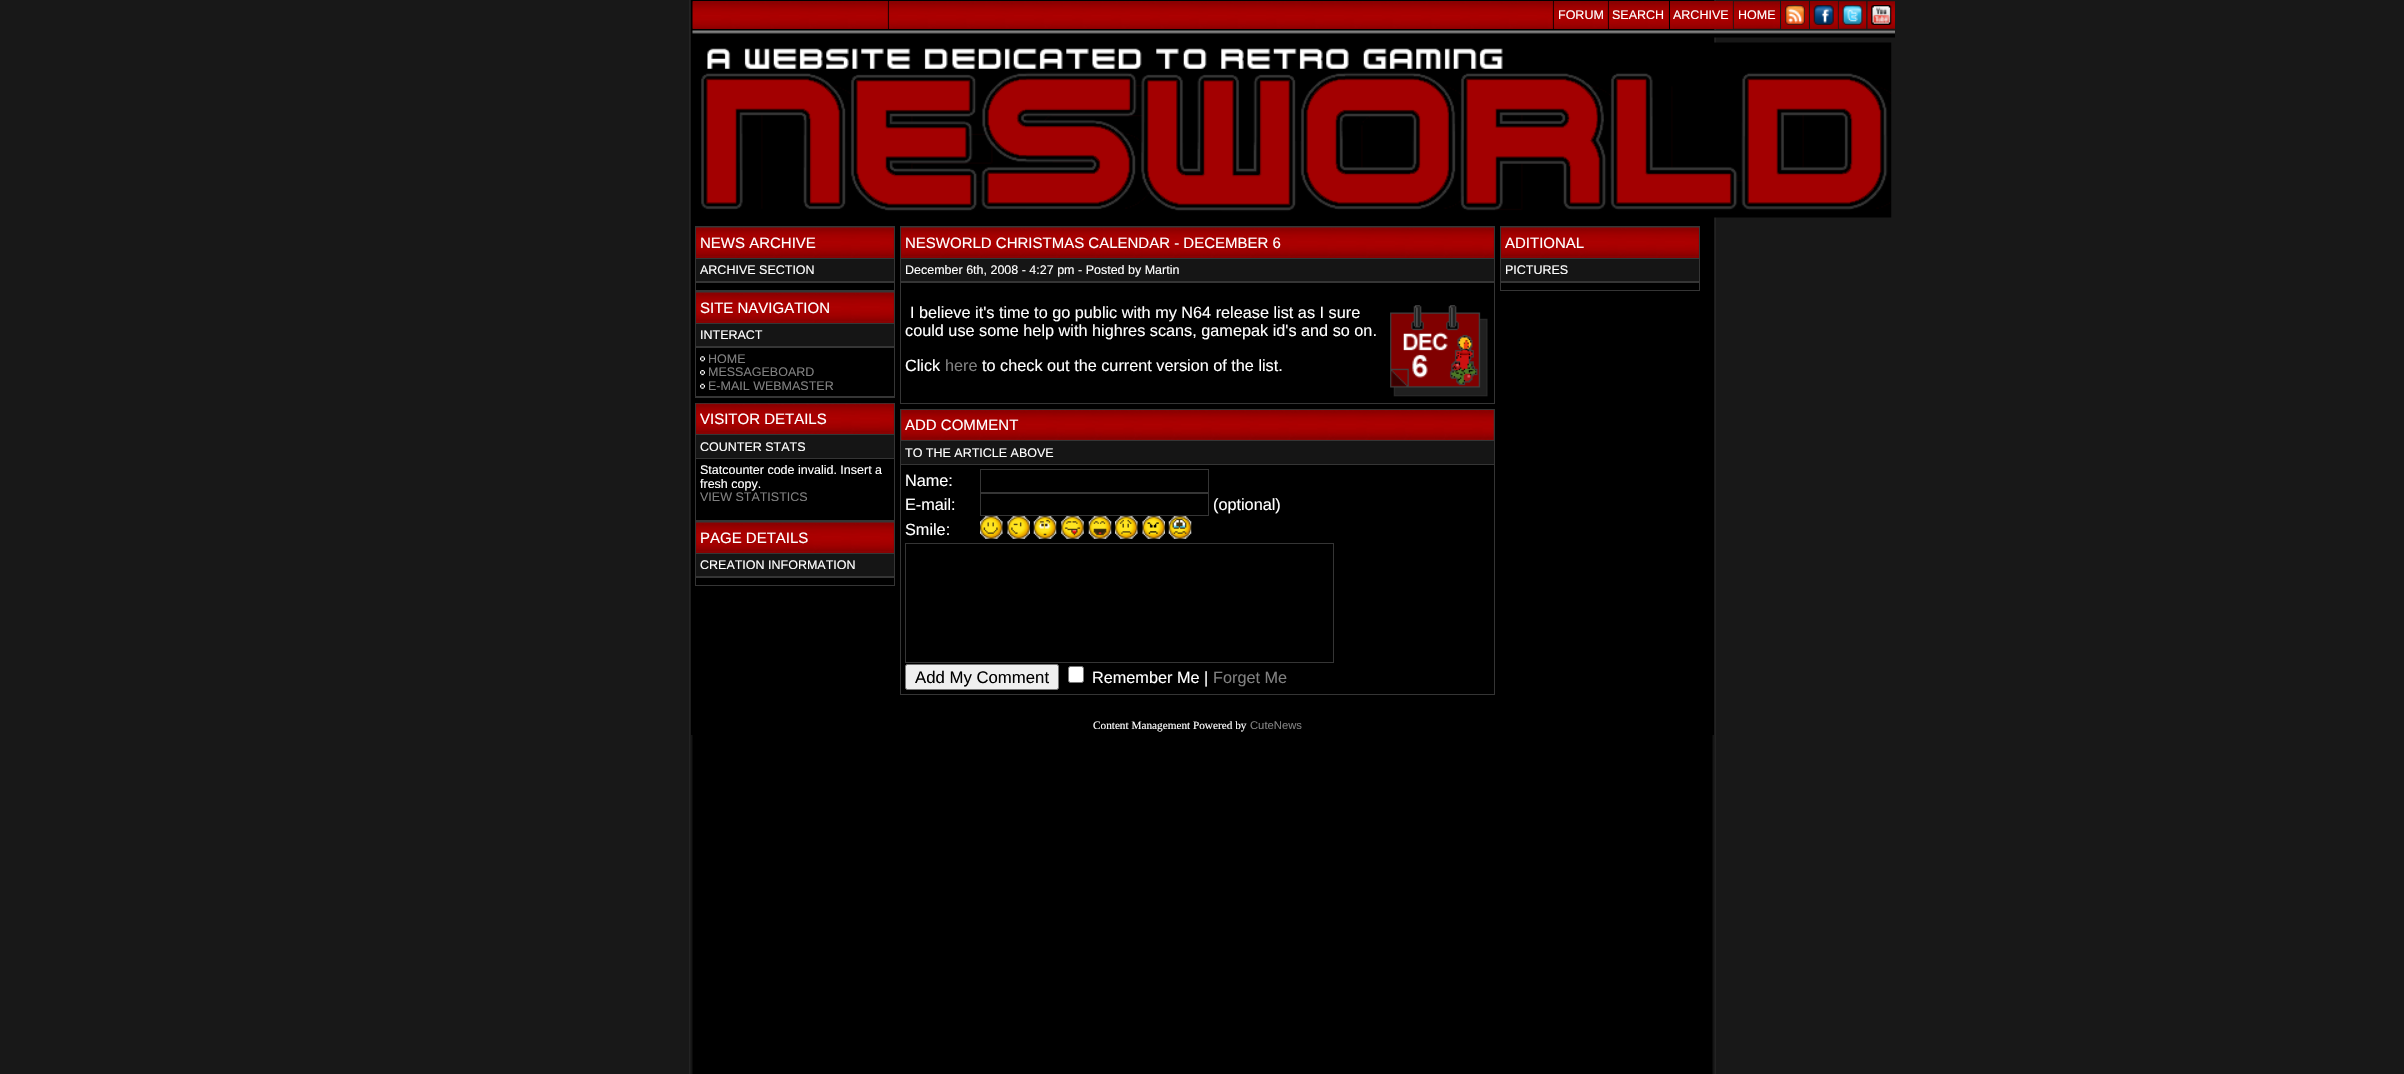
static SkFont makeFont(const char* family, int weight, float size, bool italic = false) {
  SkFontStyle style(weight, SkFontStyle::kNormal_Width,
    italic ? SkFontStyle::kItalic_Slant : SkFontStyle::kUpright_Slant);
  SkFont result(fontMgr->matchFamilyStyle(family, style), size);
  result.setSubpixel(true);
  return result;
}

static void text(SkCanvas* c, const char* s, float x, float y, const SkFont& font, SkColor color) {
  SkPaint ink(SkColor4f::FromColor(color));
  ink.setAntiAlias(true);
  c->drawString(s, x, y, font, ink);
}

static void box(SkCanvas* c, float l, float t, float r, float b, SkColor color) {
  SkPaint ink(SkColor4f::FromColor(color));
  ink.setAntiAlias(true);
  c->drawRect(SkRect::MakeLTRB(l, t, r, b), ink);
}

static void picture(SkCanvas* c, const char* path, float l, float t, float r, float b) {
  auto image = SkImages::DeferredFromEncodedData(SkData::MakeFromFileName(path));
  c->drawImageRect(image, SkRect::MakeLTRB(l, t, r, b), SkSamplingOptions());
}

void draw(SkCanvas* c) {
  SkPaint paint;
  paint.setAntiAlias(true);
  c->clear(0xff181818);
  picture(c, "img_01.png", 689, 0, 1716, 1074);
  box(c, 691, 0, 1714, 735, 0xff000000);
  box(c, 693, 1, 888, 29, 0xff800000);
  picture(c, "img_02.png", 692, 1, 888, 29);
  box(c, 889, 1, 1553, 29, 0xff800000);
  picture(c, "img_03.png", 888, 1, 1553, 29);
  box(c, 1554, 1, 1608, 29, 0xff800000);
  picture(c, "img_04.png", 1553, 1, 1608, 29);
  SkFont face1 = makeFont("Liberation Sans", 400, 12.5f);
  text(c, "FORUM", 1558, 19, face1, 0xffffffff);
  box(c, 1609, 1, 1669, 29, 0xff800000);
  picture(c, "img_05.png", 1608, 1, 1669, 29);
  text(c, "SEARCH", 1612, 19, face1, 0xffffffff);
  box(c, 1670, 1, 1733, 29, 0xff800000);
  picture(c, "img_06.png", 1670, 1, 1733, 29);
  text(c, "ARCHIVE", 1673, 19, face1, 0xffffffff);
  picture(c, "img_07.png", 1733, 1, 1780, 29);
  text(c, "HOME", 1738, 19, face1, 0xffffffff);
  box(c, 1781, 1, 1809, 29, 0xff800000);
  picture(c, "img_08.png", 1781, 1, 1809, 29);
  picture(c, "img_09.png", 1785, 5, 1805, 25);
  box(c, 1810, 1, 1838, 29, 0xff800000);
  picture(c, "img_10.png", 1810, 1, 1838, 29);
  picture(c, "img_11.png", 1813, 5, 1834, 25);
  picture(c, "img_12.png", 1838, 1, 1867, 29);
  picture(c, "img_13.png", 1842, 5, 1863, 25);
  picture(c, "img_14.png", 1867, 1, 1895, 29);
  picture(c, "img_15.png", 1871, 5, 1892, 25);
  picture(c, "img_16.png", 692, 30, 1895, 38);
  picture(c, "img_17.png", 701, 42, 1892, 218);
  box(c, 695, 226, 895, 398, 0xff353535);
  box(c, 696, 228, 894, 258, 0xff800000);
  picture(c, "img_18.png", 696, 227, 894, 258);
  SkFont face2 = makeFont("Liberation Sans", 400, 15);
  text(c, "NEWS ARCHIVE", 700, 248, face2, 0xffffffff);
  box(c, 696, 259, 894, 281, 0xff151515);
  text(c, "ARCHIVE SECTION", 700, 274, face1, 0xffffffff);
  box(c, 696, 283, 894, 290, 0xff000000);
  box(c, 696, 293, 894, 323, 0xff800000);
  picture(c, "img_19.png", 696, 292, 894, 323);
  text(c, "SITE NAVIGATION", 700, 313, face2, 0xffffffff);
  box(c, 696, 324, 894, 346, 0xff151515);
  text(c, "INTERACT", 700, 339, face1, 0xffffffff);
  box(c, 696, 348, 894, 396, 0xff000000);
  picture(c, "img_20.png", 700, 356, 705, 362);
  text(c, "HOME", 708, 363, face1, 0xff808080);
  picture(c, "img_21.png", 700, 370, 705, 376);
  text(c, "MESSAGEBOARD", 708, 376, face1, 0xff808080);
  picture(c, "img_22.png", 700, 383, 705, 389);
  text(c, "E-MAIL WEBMASTER", 708, 390, face1, 0xff808080);
  box(c, 695, 403, 895, 586, 0xff353535);
  box(c, 696, 404, 894, 434, 0xff800000);
  picture(c, "img_23.png", 696, 403, 894, 434);
  text(c, "VISITOR DETAILS", 700, 424, face2, 0xffffffff);
  box(c, 696, 435, 894, 458, 0xff151515);
  text(c, "COUNTER STATS", 700, 451, face1, 0xffffffff);
  box(c, 696, 459, 894, 520, 0xff000000);
  text(c, "Statcounter code invalid. Insert a", 700, 474, face1, 0xffffffff);
  text(c, "fresh copy.", 700, 488, face1, 0xffffffff);
  text(c, "VIEW STATISTICS", 700, 501, face1, 0xff808080);
  box(c, 696, 523, 894, 553, 0xff800000);
  picture(c, "img_24.png", 696, 522, 894, 553);
  text(c, "PAGE DETAILS", 700, 543, face2, 0xffffffff);
  box(c, 696, 554, 894, 576, 0xff151515);
  text(c, "CREATION INFORMATION", 700, 569, face1, 0xffffffff);
  box(c, 696, 578, 894, 585, 0xff000000);
  box(c, 900, 226, 1495, 404, 0xff353535);
  box(c, 901, 228, 1494, 258, 0xff800000);
  picture(c, "img_25.png", 901, 227, 1494, 258);
  text(c, "NESWORLD CHRISTMAS CALENDAR - DECEMBER 6", 905, 248, face2, 0xffffffff);
  box(c, 901, 259, 1494, 281, 0xff151515);
  text(c, "December 6th, 2008 - 4:27 pm - Posted by Martin", 905, 274, face1, 0xffffffff);
  box(c, 901, 283, 1494, 403, 0xff000000);
  SkFont face3 = makeFont("Liberation Sans", 400, 16.25f);
  text(c, "I believe it's time to go public with my N64 release list as I sure", 910, 318, face3, 0xffffffff);
  picture(c, "img_26.png", 1390, 305, 1488, 397);
  text(c, "could use some help with highres scans, gamepak id's and so on.", 905, 336, face3, 0xffffffff);
  text(c, "Click", 905, 371, face3, 0xffffffff);
  text(c, "here", 945, 371, face3, 0xff808080);
  text(c, "to check out the current version of the list.", 982, 371, face3, 0xffffffff);
  box(c, 900, 409, 1495, 695, 0xff353535);
  picture(c, "img_27.png", 901, 410, 1494, 440);
  text(c, "ADD COMMENT", 905, 430, face2, 0xffffffff);
  box(c, 901, 441, 1494, 464, 0xff151515);
  text(c, "TO THE ARTICLE ABOVE", 905, 457, face1, 0xffffffff);
  box(c, 901, 465, 1494, 694, 0xff000000);
  text(c, "Name:", 905, 486, face3, 0xffffffff);
  paint.setStyle(SkPaint::kStroke_Style);
  paint.setStrokeWidth(1);
  paint.setColor(0xff353535);
  c->drawRect(SkRect::MakeLTRB(980.5f, 469.5f, 1208.5f, 492.5f), paint);
  text(c, "E-mail:", 905, 510, face3, 0xffffffff);
  c->drawRect(SkRect::MakeLTRB(980.5f, 493.5f, 1208.5f, 515.5f), paint);
  text(c, "(optional)", 1213, 510, face3, 0xffffffff);
  text(c, "Smile:", 905, 535, face3, 0xffffffff);
  picture(c, "img_28.png", 980, 516, 1003, 539);
  picture(c, "img_29.png", 1007, 516, 1030, 539);
  picture(c, "img_30.png", 1033, 516, 1057, 539);
  picture(c, "img_31.png", 1061, 516, 1084, 539);
  picture(c, "img_32.png", 1088, 516, 1112, 539);
  picture(c, "img_33.png", 1115, 516, 1138, 539);
  picture(c, "img_34.png", 1142, 516, 1165, 539);
  picture(c, "img_35.png", 1168, 516, 1192, 539);
  c->drawRect(SkRect::MakeLTRB(905.5f, 543.5f, 1333.5f, 662.5f), paint);
  paint.setStyle(SkPaint::kFill_Style);
  paint.setColor(0xffefefef);
  c->drawRoundRect(SkRect::MakeLTRB(905.5f, 664.5f, 1058.5f, 689.5f), 2, 2, paint);
  paint.setStyle(SkPaint::kStroke_Style);
  paint.setColor(0xff767676);
  c->drawRoundRect(SkRect::MakeLTRB(905.5f, 664.5f, 1058.5f, 689.5f), 2, 2, paint);
  SkFont face4 = makeFont("Liberation Sans", 400, 16.75f);
  text(c, "Add My Comment", 915, 683, face4, 0xff000000);
  paint.setStyle(SkPaint::kFill_Style);
  paint.setColor(0xffffffff);
  c->drawRoundRect(SkRect::MakeLTRB(1068.5f, 666.5f, 1083.5f, 682.5f), 2, 2, paint);
  paint.setStyle(SkPaint::kStroke_Style);
  paint.setColor(0xff767676);
  c->drawRoundRect(SkRect::MakeLTRB(1068.5f, 666.5f, 1083.5f, 682.5f), 2, 2, paint);
  text(c, "Remember Me |", 1092, 683, face3, 0xffffffff);
  text(c, "Forget Me", 1213, 683, face3, 0xff808080);
  SkFont face5 = makeFont("Liberation Serif", 400, 11.25f);
  text(c, "Content Management Powered by", 1093, 729, face5, 0xffffffff);
  SkFont face6 = makeFont("Liberation Sans", 400, 11.25f);
  text(c, "CuteNews", 1250, 729, face6, 0xff808080);
  box(c, 1500, 226, 1700, 291, 0xff353535);
  box(c, 1501, 228, 1699, 258, 0xff800000);
  picture(c, "img_36.png", 1501, 227, 1699, 258);
  text(c, "ADITIONAL", 1505, 248, face2, 0xffffffff);
  box(c, 1501, 259, 1699, 281, 0xff151515);
  text(c, "PICTURES", 1505, 274, face1, 0xffffffff);
  box(c, 1501, 283, 1699, 290, 0xff000000);
}
